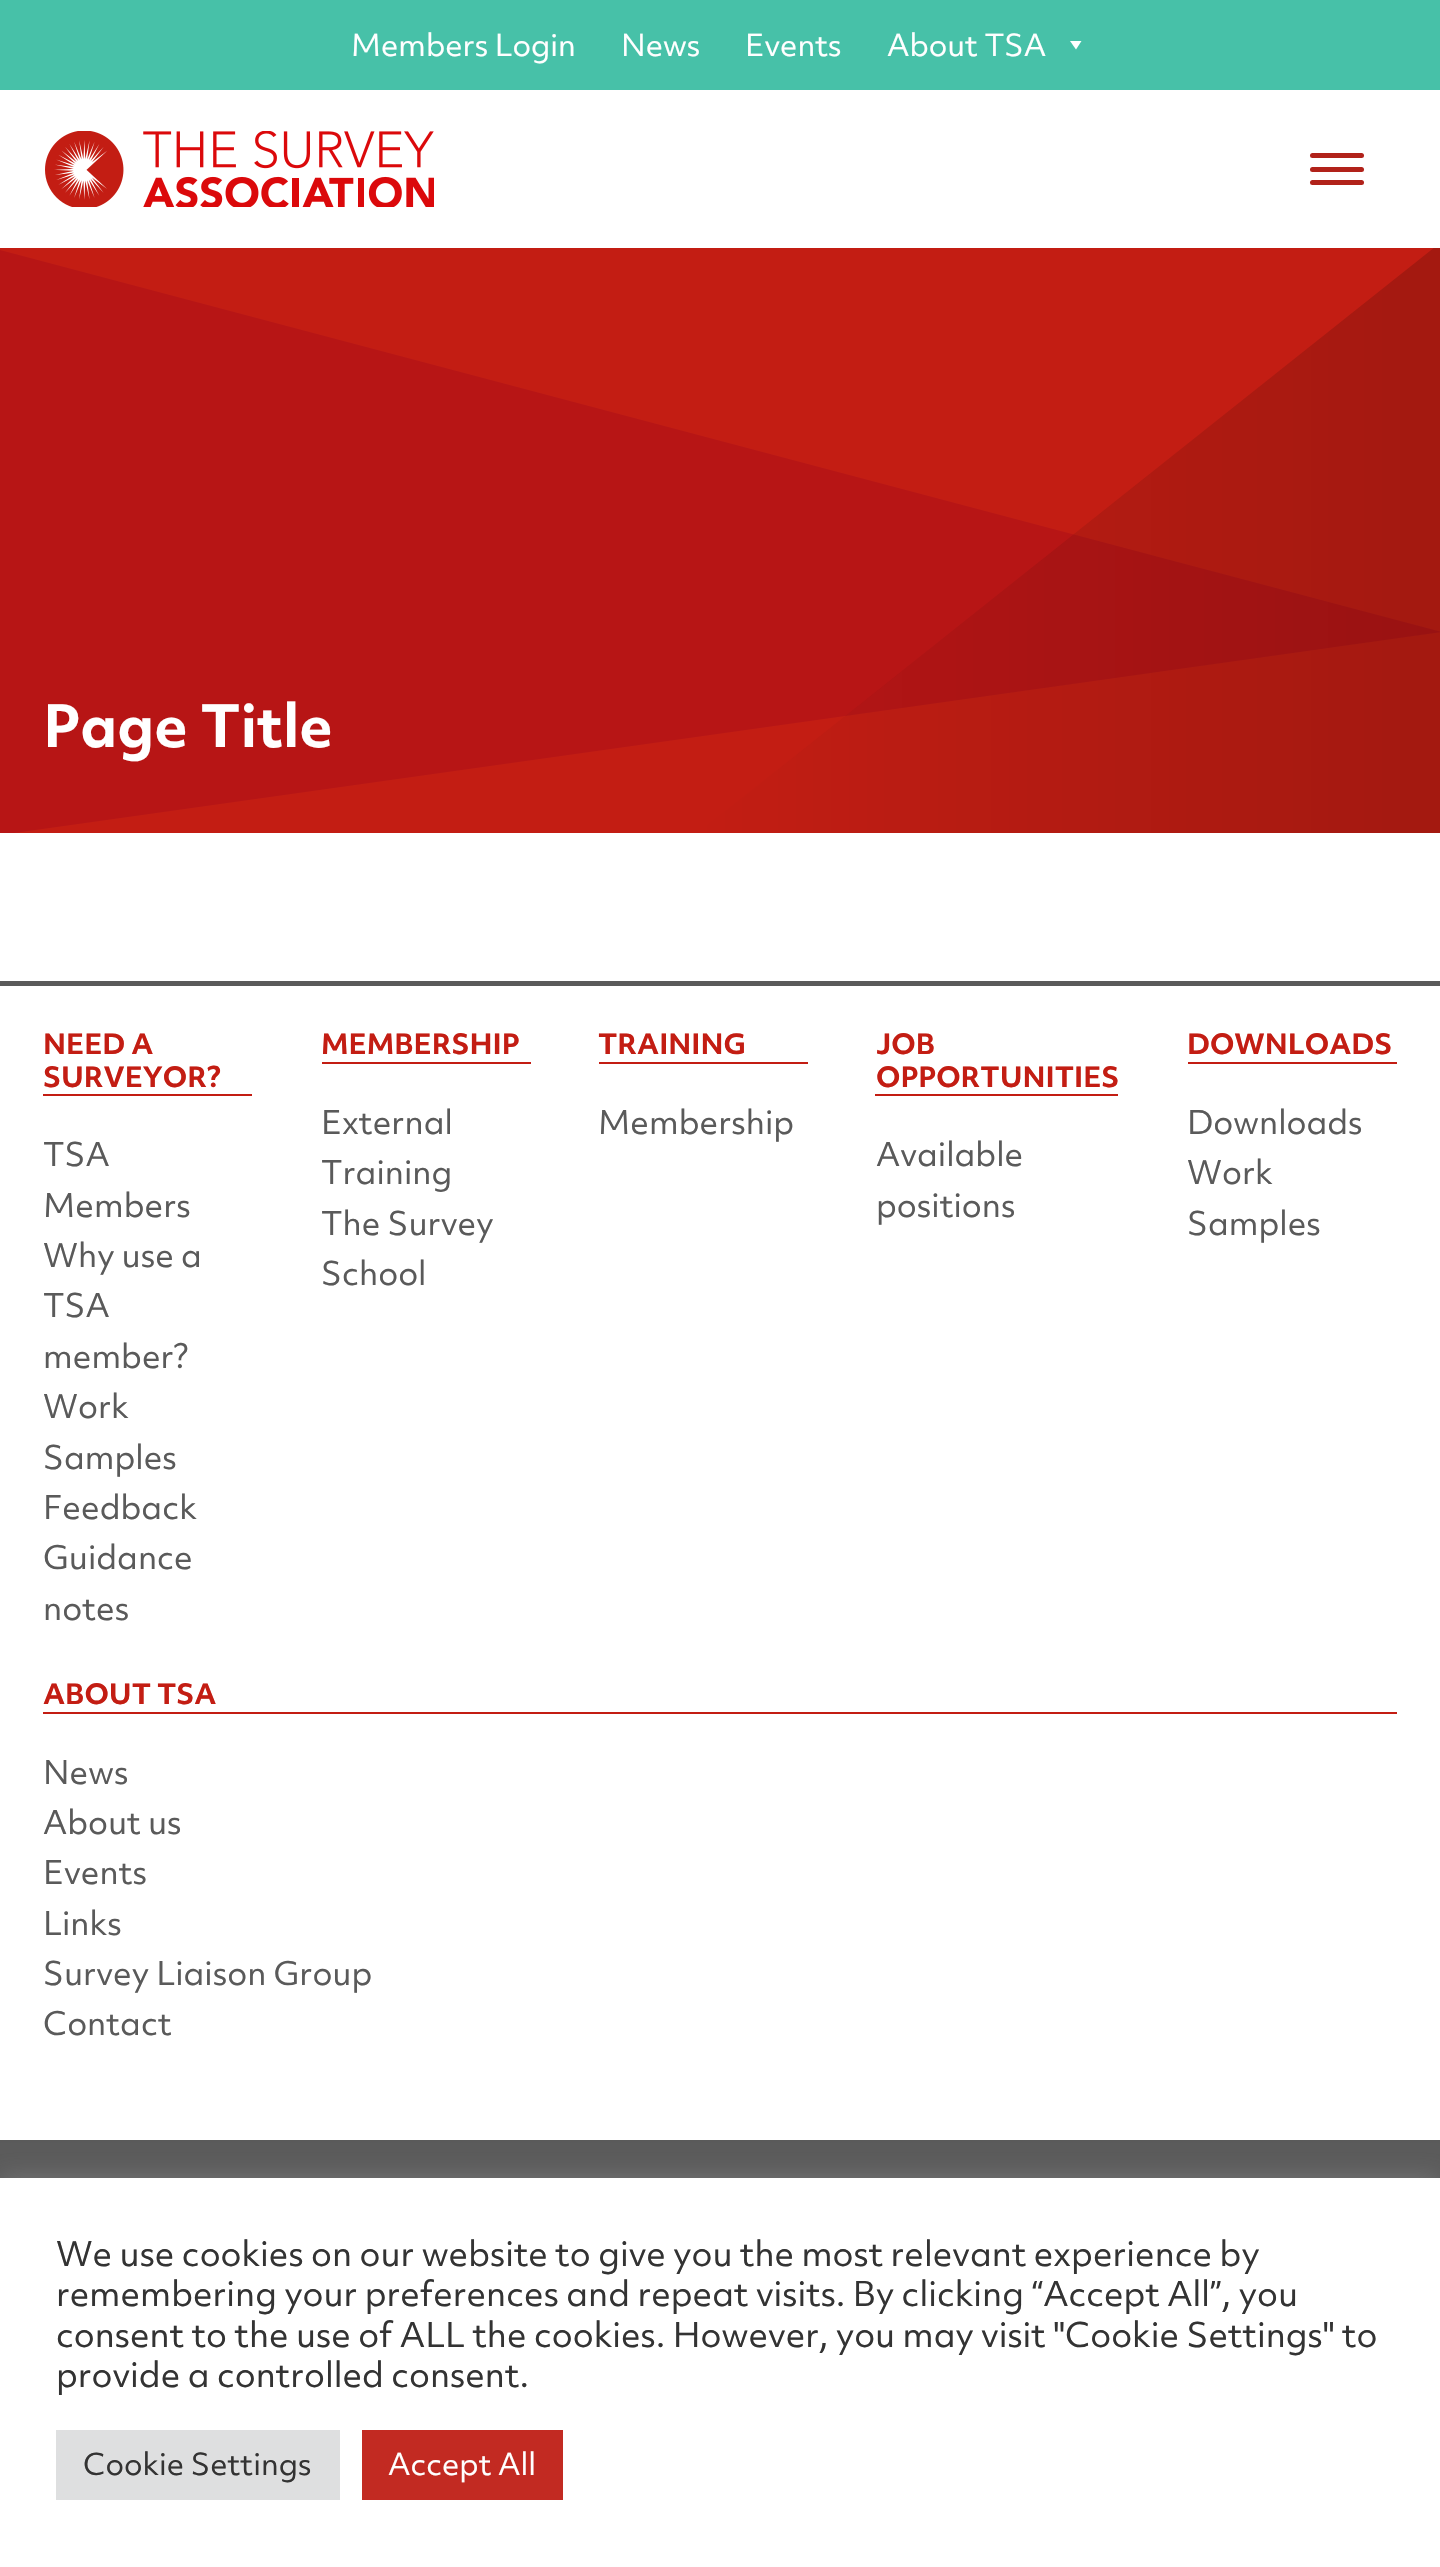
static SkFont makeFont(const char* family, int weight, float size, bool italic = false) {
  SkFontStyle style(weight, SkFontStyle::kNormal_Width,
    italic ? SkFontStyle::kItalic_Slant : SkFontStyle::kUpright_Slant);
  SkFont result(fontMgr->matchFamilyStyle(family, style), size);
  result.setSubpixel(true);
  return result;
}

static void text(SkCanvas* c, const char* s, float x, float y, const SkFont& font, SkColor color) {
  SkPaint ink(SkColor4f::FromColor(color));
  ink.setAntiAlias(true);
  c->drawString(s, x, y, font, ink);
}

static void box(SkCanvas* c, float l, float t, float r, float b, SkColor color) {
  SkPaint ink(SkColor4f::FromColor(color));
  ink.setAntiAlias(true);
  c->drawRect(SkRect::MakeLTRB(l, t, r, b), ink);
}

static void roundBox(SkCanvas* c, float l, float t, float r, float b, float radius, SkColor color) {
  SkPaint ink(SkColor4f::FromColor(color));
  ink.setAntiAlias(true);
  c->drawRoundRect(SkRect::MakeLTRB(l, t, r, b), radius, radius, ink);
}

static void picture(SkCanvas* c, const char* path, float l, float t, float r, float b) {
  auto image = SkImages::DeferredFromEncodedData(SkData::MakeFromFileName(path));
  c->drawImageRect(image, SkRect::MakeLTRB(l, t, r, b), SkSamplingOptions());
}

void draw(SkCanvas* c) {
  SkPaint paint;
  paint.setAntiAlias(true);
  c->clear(0xffffffff);
  box(c, 0, 0, 1440, 90, 0xff47c1a8);
  SkFont face1 = makeFont("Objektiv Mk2", 400, 29.25f);
  text(c, "Members Login", 351, 56, face1, 0xffffffff);
  text(c, "News", 621, 56, face1, 0xffffffff);
  text(c, "Events", 745, 56, face1, 0xffffffff);
  text(c, "About TSA", 887, 56, face1, 0xffffffff);
  paint.setColor(0xffffffff);
  c->drawPath(SkPathBuilder().moveTo(1081.5f, 41).lineTo(1076, 49.5f).lineTo(1070, 41).close().detach(), paint);
  picture(c, "img_01.png", 45, 131, 434, 207);
  roundBox(c, 1310, 153, 1364, 158, 2.5f, 0xffb1221a);
  roundBox(c, 1310, 167, 1364, 172, 2.5f, 0xffb1221a);
  roundBox(c, 1310, 180, 1364, 185, 2.5f, 0xffb1221a);
  box(c, 0, 248, 1440, 833, 0xffc31d13);
  c->save();
  c->clipRect(SkRect::MakeLTRB(0, 248, 1440, 833));
  paint.setColor(0xffb71515);
  c->drawPath(SkPathBuilder().moveTo(0, 250).lineTo(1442, 632).lineTo(0, 835).close().detach(), paint);
  {
    const SkColor colors[] = {0x00000000, 0x29000000};
    const float stops[] = {0, 0.98f};
    const SkPoint ends[] = {{698, 538}, {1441, 538}};
    paint.setShader(SkGradientShader::MakeLinear(ends, colors, stops, 2, SkTileMode::kClamp));
    paint.setAlpha(255);
  }
  c->drawPath(SkPathBuilder().moveTo(1440, 243).lineTo(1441, 833).lineTo(698, 833).close().detach(), paint);
  c->restore();
  SkFont face2 = makeFont("Objektiv Mk2", 700, 56.25f);
  text(c, "Page Title", 43, 747, face2, 0xffffffff);
  box(c, 0, 981, 1440, 986, 0xff5a5a5a);
  box(c, 43, 1094, 252, 1096, 0xffc31d13);
  SkFont face3 = makeFont("Objektiv Mk2", 700, 27);
  text(c, "NEED A", 43, 1054, face3, 0xffc31d13);
  text(c, "SURVEYOR?", 43, 1087, face3, 0xffc31d13);
  SkFont face4 = makeFont("Objektiv Mk2", 400, 31.5f);
  text(c, "TSA", 43, 1166, face4, 0xff5a5a5a);
  text(c, "Members", 43, 1217, face4, 0xff5a5a5a);
  text(c, "Why use a", 43, 1267, face4, 0xff5a5a5a);
  text(c, "TSA", 43, 1317, face4, 0xff5a5a5a);
  text(c, "member?", 43, 1368, face4, 0xff5a5a5a);
  text(c, "Work", 43, 1418, face4, 0xff5a5a5a);
  text(c, "Samples", 43, 1469, face4, 0xff5a5a5a);
  text(c, "Feedback", 43, 1519, face4, 0xff5a5a5a);
  text(c, "Guidance", 43, 1569, face4, 0xff5a5a5a);
  text(c, "notes", 43, 1620, face4, 0xff5a5a5a);
  box(c, 322, 1062, 531, 1064, 0xffc31d13);
  text(c, "MEMBERSHIP", 321, 1054, face3, 0xffc31d13);
  text(c, "External", 321, 1134, face4, 0xff5a5a5a);
  text(c, "Training", 321, 1184, face4, 0xff5a5a5a);
  text(c, "The Survey", 321, 1235, face4, 0xff5a5a5a);
  text(c, "School", 321, 1285, face4, 0xff5a5a5a);
  box(c, 599, 1062, 808, 1064, 0xffc31d13);
  text(c, "TRAINING", 598, 1054, face3, 0xffc31d13);
  text(c, "Membership", 598, 1134, face4, 0xff5a5a5a);
  box(c, 875, 1094, 1118, 1096, 0xffc31d13);
  text(c, "JOB", 876, 1054, face3, 0xffc31d13);
  text(c, "OPPORTUNITIES", 876, 1087, face3, 0xffc31d13);
  text(c, "Available", 876, 1166, face4, 0xff5a5a5a);
  text(c, "positions", 876, 1217, face4, 0xff5a5a5a);
  box(c, 1188, 1062, 1397, 1064, 0xffc31d13);
  text(c, "DOWNLOADS", 1187, 1054, face3, 0xffc31d13);
  text(c, "Downloads", 1187, 1134, face4, 0xff5a5a5a);
  text(c, "Work", 1187, 1184, face4, 0xff5a5a5a);
  text(c, "Samples", 1187, 1235, face4, 0xff5a5a5a);
  box(c, 43, 1712, 1397, 1714, 0xffc31d13);
  text(c, "ABOUT TSA", 43, 1704, face3, 0xffc31d13);
  text(c, "News", 43, 1784, face4, 0xff5a5a5a);
  text(c, "About us", 43, 1834, face4, 0xff5a5a5a);
  text(c, "Events", 43, 1884, face4, 0xff5a5a5a);
  text(c, "Links", 43, 1935, face4, 0xff5a5a5a);
  text(c, "Survey Liaison Group", 43, 1985, face4, 0xff5a5a5a);
  text(c, "Contact", 43, 2035, face4, 0xff5a5a5a);
  box(c, 0, 2140, 1440, 2178, 0xff5a5a5a);
  paint.setShader(nullptr);
  paint.setColor(0x4dacabab);
  paint.setMaskFilter(SkMaskFilter::MakeBlur(kNormal_SkBlurStyle, 11));
  c->drawRect(SkRect::MakeLTRB(0, 2176, 1440, 2565), paint);
  paint.setMaskFilter(nullptr);
  box(c, 0, 2178, 1440, 2567, 0xffffffff);
  SkFont face5 = makeFont("Objektiv Mk2", 400, 33);
  text(c, "We use cookies on our website to give you the most relevant experience by", 56, 2266, face5, 0xff333333);
  text(c, "remembering your preferences and repeat visits. By clicking “Accept All”, you", 56, 2306, face5, 0xff333333);
  text(c, "consent to the use of ALL the cookies. However, you may visit \"Cookie Settings\" to", 56, 2347, face5, 0xff333333);
  text(c, "provide a controlled consent.", 56, 2387, face5, 0xff333333);
  box(c, 56, 2430, 340, 2500, 0xffdedfe0);
  text(c, "Cookie Settings", 83, 2475, face1, 0xff333333);
  box(c, 362, 2430, 563, 2500, 0xffc22a22);
  text(c, "Accept All", 388, 2475, face1, 0xffffffff);
}
